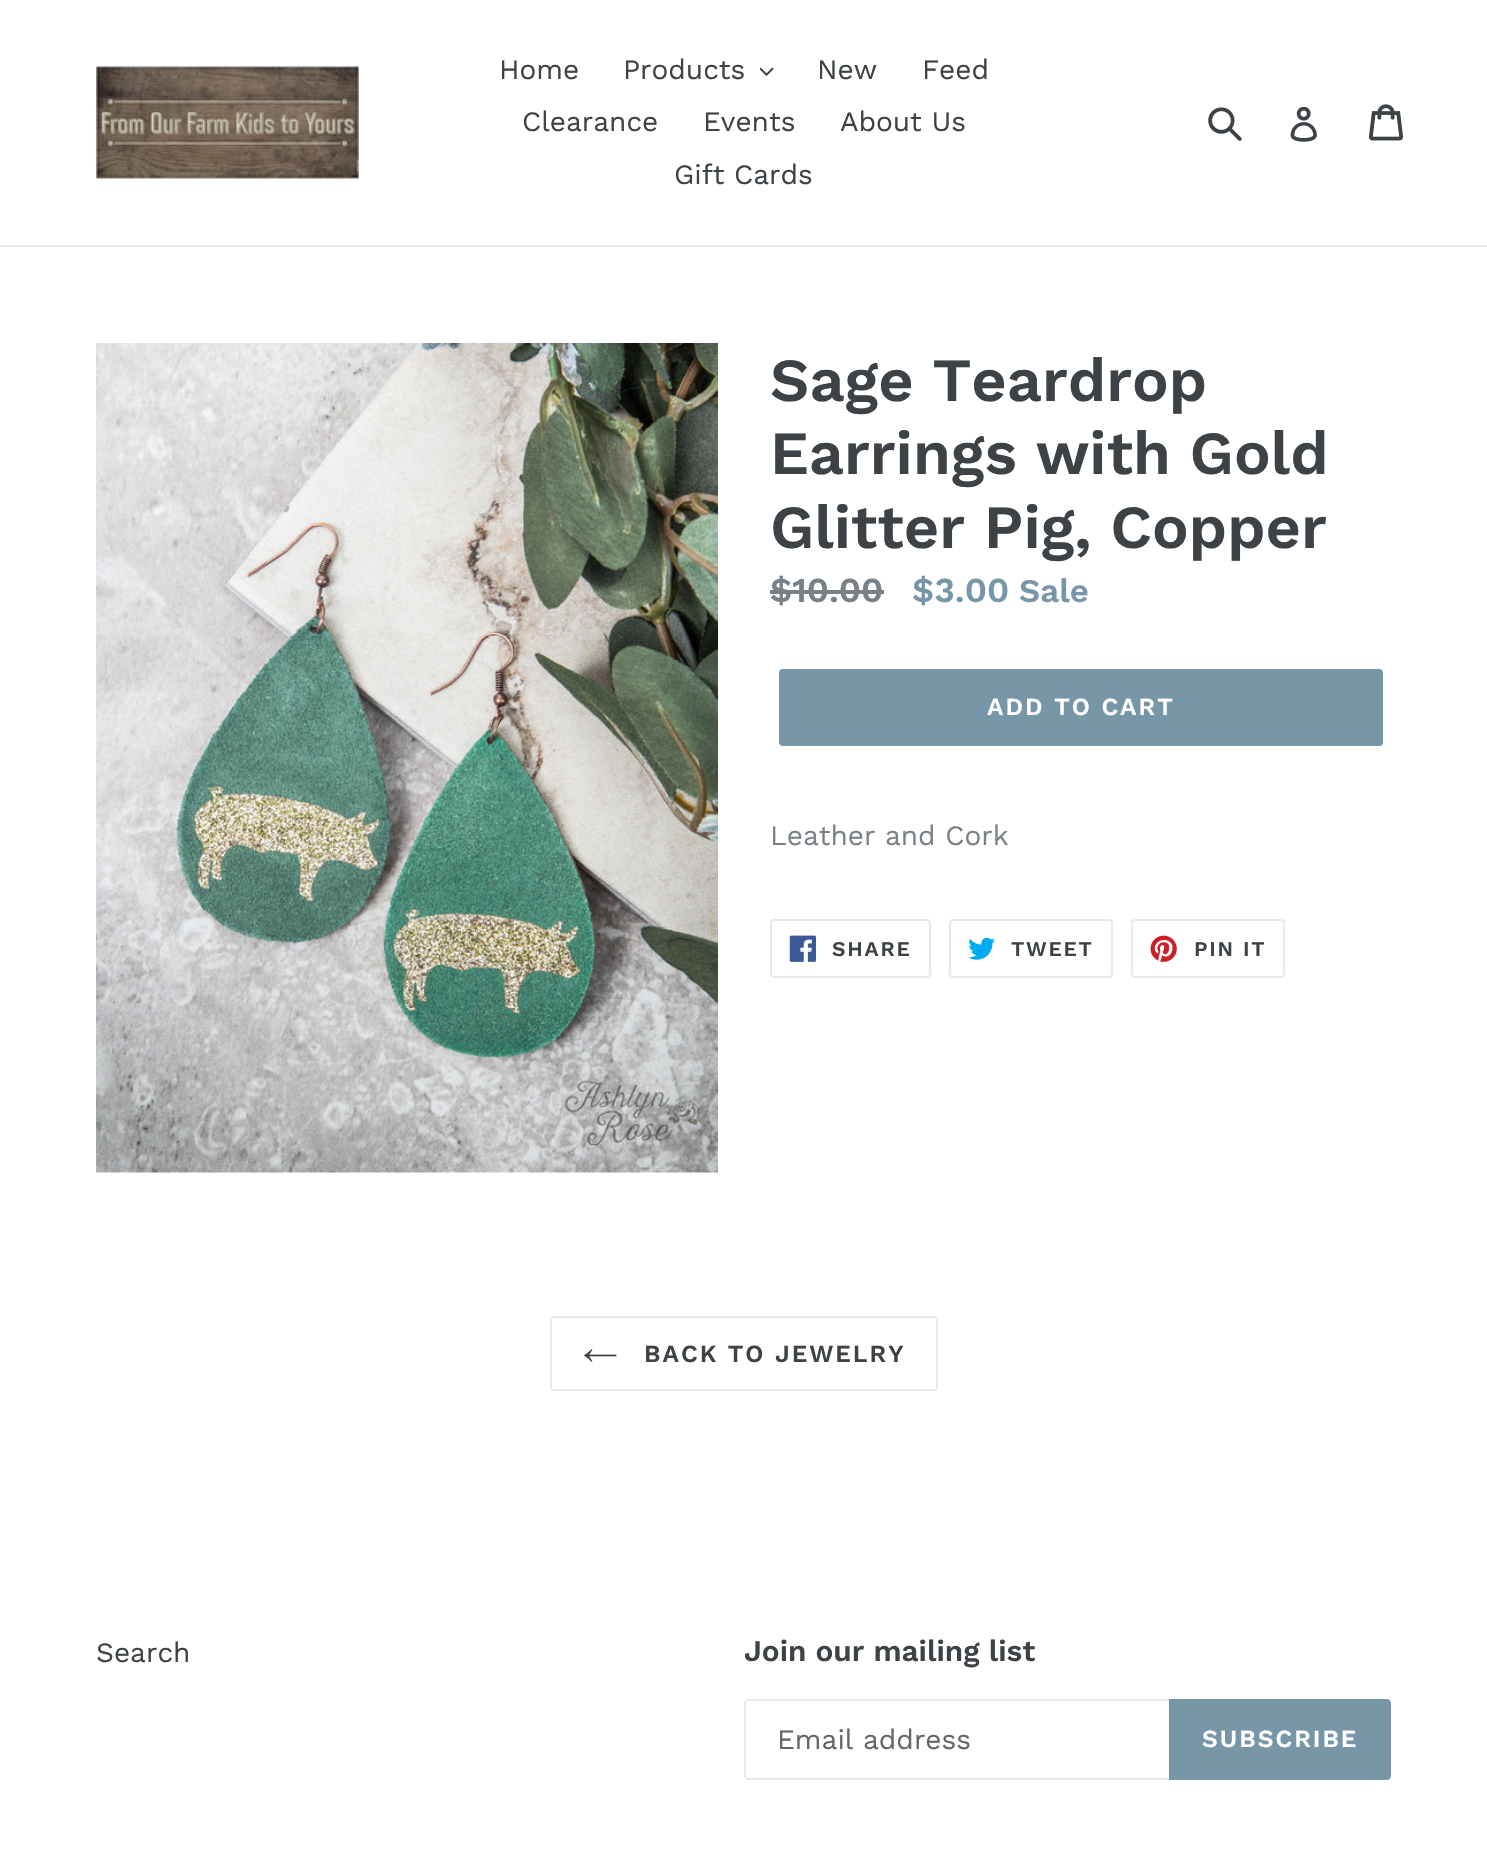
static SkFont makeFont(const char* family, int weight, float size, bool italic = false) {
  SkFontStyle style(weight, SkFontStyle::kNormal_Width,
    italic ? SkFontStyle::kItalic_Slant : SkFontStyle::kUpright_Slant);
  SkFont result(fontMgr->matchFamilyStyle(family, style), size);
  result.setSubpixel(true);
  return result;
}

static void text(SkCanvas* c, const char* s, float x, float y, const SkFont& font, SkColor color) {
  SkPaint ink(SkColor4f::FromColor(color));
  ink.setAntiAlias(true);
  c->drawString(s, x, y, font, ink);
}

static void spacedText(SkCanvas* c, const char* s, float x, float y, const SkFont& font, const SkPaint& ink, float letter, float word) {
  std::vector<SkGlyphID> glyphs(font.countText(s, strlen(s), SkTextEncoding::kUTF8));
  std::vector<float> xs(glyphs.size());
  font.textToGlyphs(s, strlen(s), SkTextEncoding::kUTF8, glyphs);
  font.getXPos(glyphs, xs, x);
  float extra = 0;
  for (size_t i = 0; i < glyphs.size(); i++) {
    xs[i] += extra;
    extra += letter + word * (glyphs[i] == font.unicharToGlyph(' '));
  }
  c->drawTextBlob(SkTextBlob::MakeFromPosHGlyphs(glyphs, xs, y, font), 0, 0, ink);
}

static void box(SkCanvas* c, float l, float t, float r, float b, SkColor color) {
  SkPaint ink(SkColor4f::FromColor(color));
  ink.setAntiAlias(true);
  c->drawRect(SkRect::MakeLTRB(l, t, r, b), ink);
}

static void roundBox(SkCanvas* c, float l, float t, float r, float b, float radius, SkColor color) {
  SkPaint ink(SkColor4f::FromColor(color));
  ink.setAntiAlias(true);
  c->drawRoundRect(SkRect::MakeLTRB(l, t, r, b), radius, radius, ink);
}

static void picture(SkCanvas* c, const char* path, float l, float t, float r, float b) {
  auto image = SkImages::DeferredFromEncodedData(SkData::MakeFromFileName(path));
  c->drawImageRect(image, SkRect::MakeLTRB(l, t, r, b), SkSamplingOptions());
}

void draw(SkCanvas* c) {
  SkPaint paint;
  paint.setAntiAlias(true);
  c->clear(0xffffffff);
  box(c, 0, 245, 1487, 247, 0xffe8e9eb);
  picture(c, "img_01.png", 96, 66, 359, 179);
  SkFont face1 = makeFont("Work Sans", 400, 28);
  text(c, "Home", 499, 79, face1, 0xff3d4246);
  text(c, "Products", 623, 79, face1, 0xff3d4246);
  picture(c, "img_02.png", 760, 67, 774, 76);
  text(c, "New", 817, 79, face1, 0xff3d4246);
  text(c, "Feed", 922, 79, face1, 0xff3d4246);
  text(c, "Clearance", 522, 131, face1, 0xff3d4246);
  text(c, "Events", 703, 131, face1, 0xff3d4246);
  text(c, "About Us", 840, 131, face1, 0xff3d4246);
  text(c, "Gift Cards", 674, 184, face1, 0xff3d4246);
  picture(c, "img_03.png", 1208, 107, 1242, 141);
  picture(c, "img_04.png", 1290, 107, 1317, 142);
  picture(c, "img_05.png", 1369, 104, 1403, 141);
  picture(c, "img_06.png", 96, 343, 718, 1173);
  SkFont face2 = makeFont("Work Sans", 600, 61.25f);
  text(c, "Sage Teardrop", 770, 401, face2, 0xff3d4246);
  text(c, "Earrings with Gold", 770, 474, face2, 0xff3d4246);
  text(c, "Glitter Pig, Copper", 770, 548, face2, 0xff3d4246);
  SkFont face3 = makeFont("Work Sans", 600, 35);
  text(c, "$10.00", 770, 602, face3, 0xff788188);
  box(c, 770, 590, 884, 594, 0xff788188);
  text(c, "$3.00", 912, 602, face3, 0xff7796a8);
  SkFont face4 = makeFont("Work Sans", 600, 33);
  text(c, "Sale", 1019, 602, face4, 0xff7796a8);
  roundBox(c, 779, 669, 1383, 746, 4, 0xff7796a8);
  SkFont face5 = makeFont("Work Sans", 600, 24.5f);
  paint.setColor(0xffffffff);
  spacedText(c, "ADD TO CART", 987, 715, face5, paint, 2, 0);
  text(c, "Leather and Cork", 770, 845, face1, 0xff788188);
  paint.setStyle(SkPaint::kStroke_Style);
  paint.setStrokeWidth(2);
  paint.setColor(0xffe8e9eb);
  c->drawRoundRect(SkRect::MakeLTRB(771, 920, 930, 977), 3, 3, paint);
  picture(c, "img_07.png", 789, 935, 816, 962);
  SkFont face6 = makeFont("Work Sans", 600, 21);
  paint.setStyle(SkPaint::kFill_Style);
  paint.setColor(0xff3d4246);
  spacedText(c, "SHARE", 832, 956, face6, paint, 1.75f, 0);
  paint.setStyle(SkPaint::kStroke_Style);
  paint.setColor(0xffe8e9eb);
  c->drawRoundRect(SkRect::MakeLTRB(950, 920, 1112, 977), 3, 3, paint);
  picture(c, "img_08.png", 968, 937, 995, 960);
  paint.setStyle(SkPaint::kFill_Style);
  paint.setColor(0xff3d4246);
  spacedText(c, "TWEET", 1011, 956, face6, paint, 1.75f, 0);
  paint.setStyle(SkPaint::kStroke_Style);
  paint.setColor(0xffe8e9eb);
  c->drawRoundRect(SkRect::MakeLTRB(1132, 920, 1284, 977), 3, 3, paint);
  picture(c, "img_09.png", 1150, 935, 1177, 962);
  paint.setStyle(SkPaint::kFill_Style);
  paint.setColor(0xff3d4246);
  spacedText(c, "PIN IT", 1194, 956, face6, paint, 1.75f, 0);
  paint.setStyle(SkPaint::kStroke_Style);
  paint.setColor(0xffe8e9eb);
  c->drawRoundRect(SkRect::MakeLTRB(551, 1317, 937, 1390), 3, 3, paint);
  picture(c, "img_10.png", 584, 1349, 617, 1362);
  paint.setStyle(SkPaint::kFill_Style);
  paint.setColor(0xff3d4246);
  spacedText(c, "BACK TO JEWELRY", 644, 1362, face5, paint, 2, 0);
  text(c, "Search", 96, 1662, face1, 0xff3d4246);
  SkFont face7 = makeFont("Work Sans", 600, 29.75f);
  text(c, "Join our mailing list", 744, 1661, face7, 0xff3d4246);
  box(c, 746, 1699, 1169, 1701, 0xffe8e9eb);
  box(c, 746, 1778, 1169, 1780, 0xffe8e9eb);
  box(c, 744, 1701, 746, 1778, 0xffe8e9eb);
  text(c, "Email address", 777, 1749, face1, 0xff666666);
  paint.setColor(0xff7796a8);
  c->drawPath(SkPathBuilder().moveTo(1169, 1699).lineTo(1387, 1699).cubicTo(1389, 1699, 1391, 1701, 1391, 1703).lineTo(1391, 1776).cubicTo(1391, 1778, 1389, 1780, 1387, 1780).lineTo(1169, 1780).close().detach(), paint);
  paint.setColor(0xffffffff);
  spacedText(c, "SUBSCRIBE", 1202, 1747, face5, paint, 2, 0);
}
